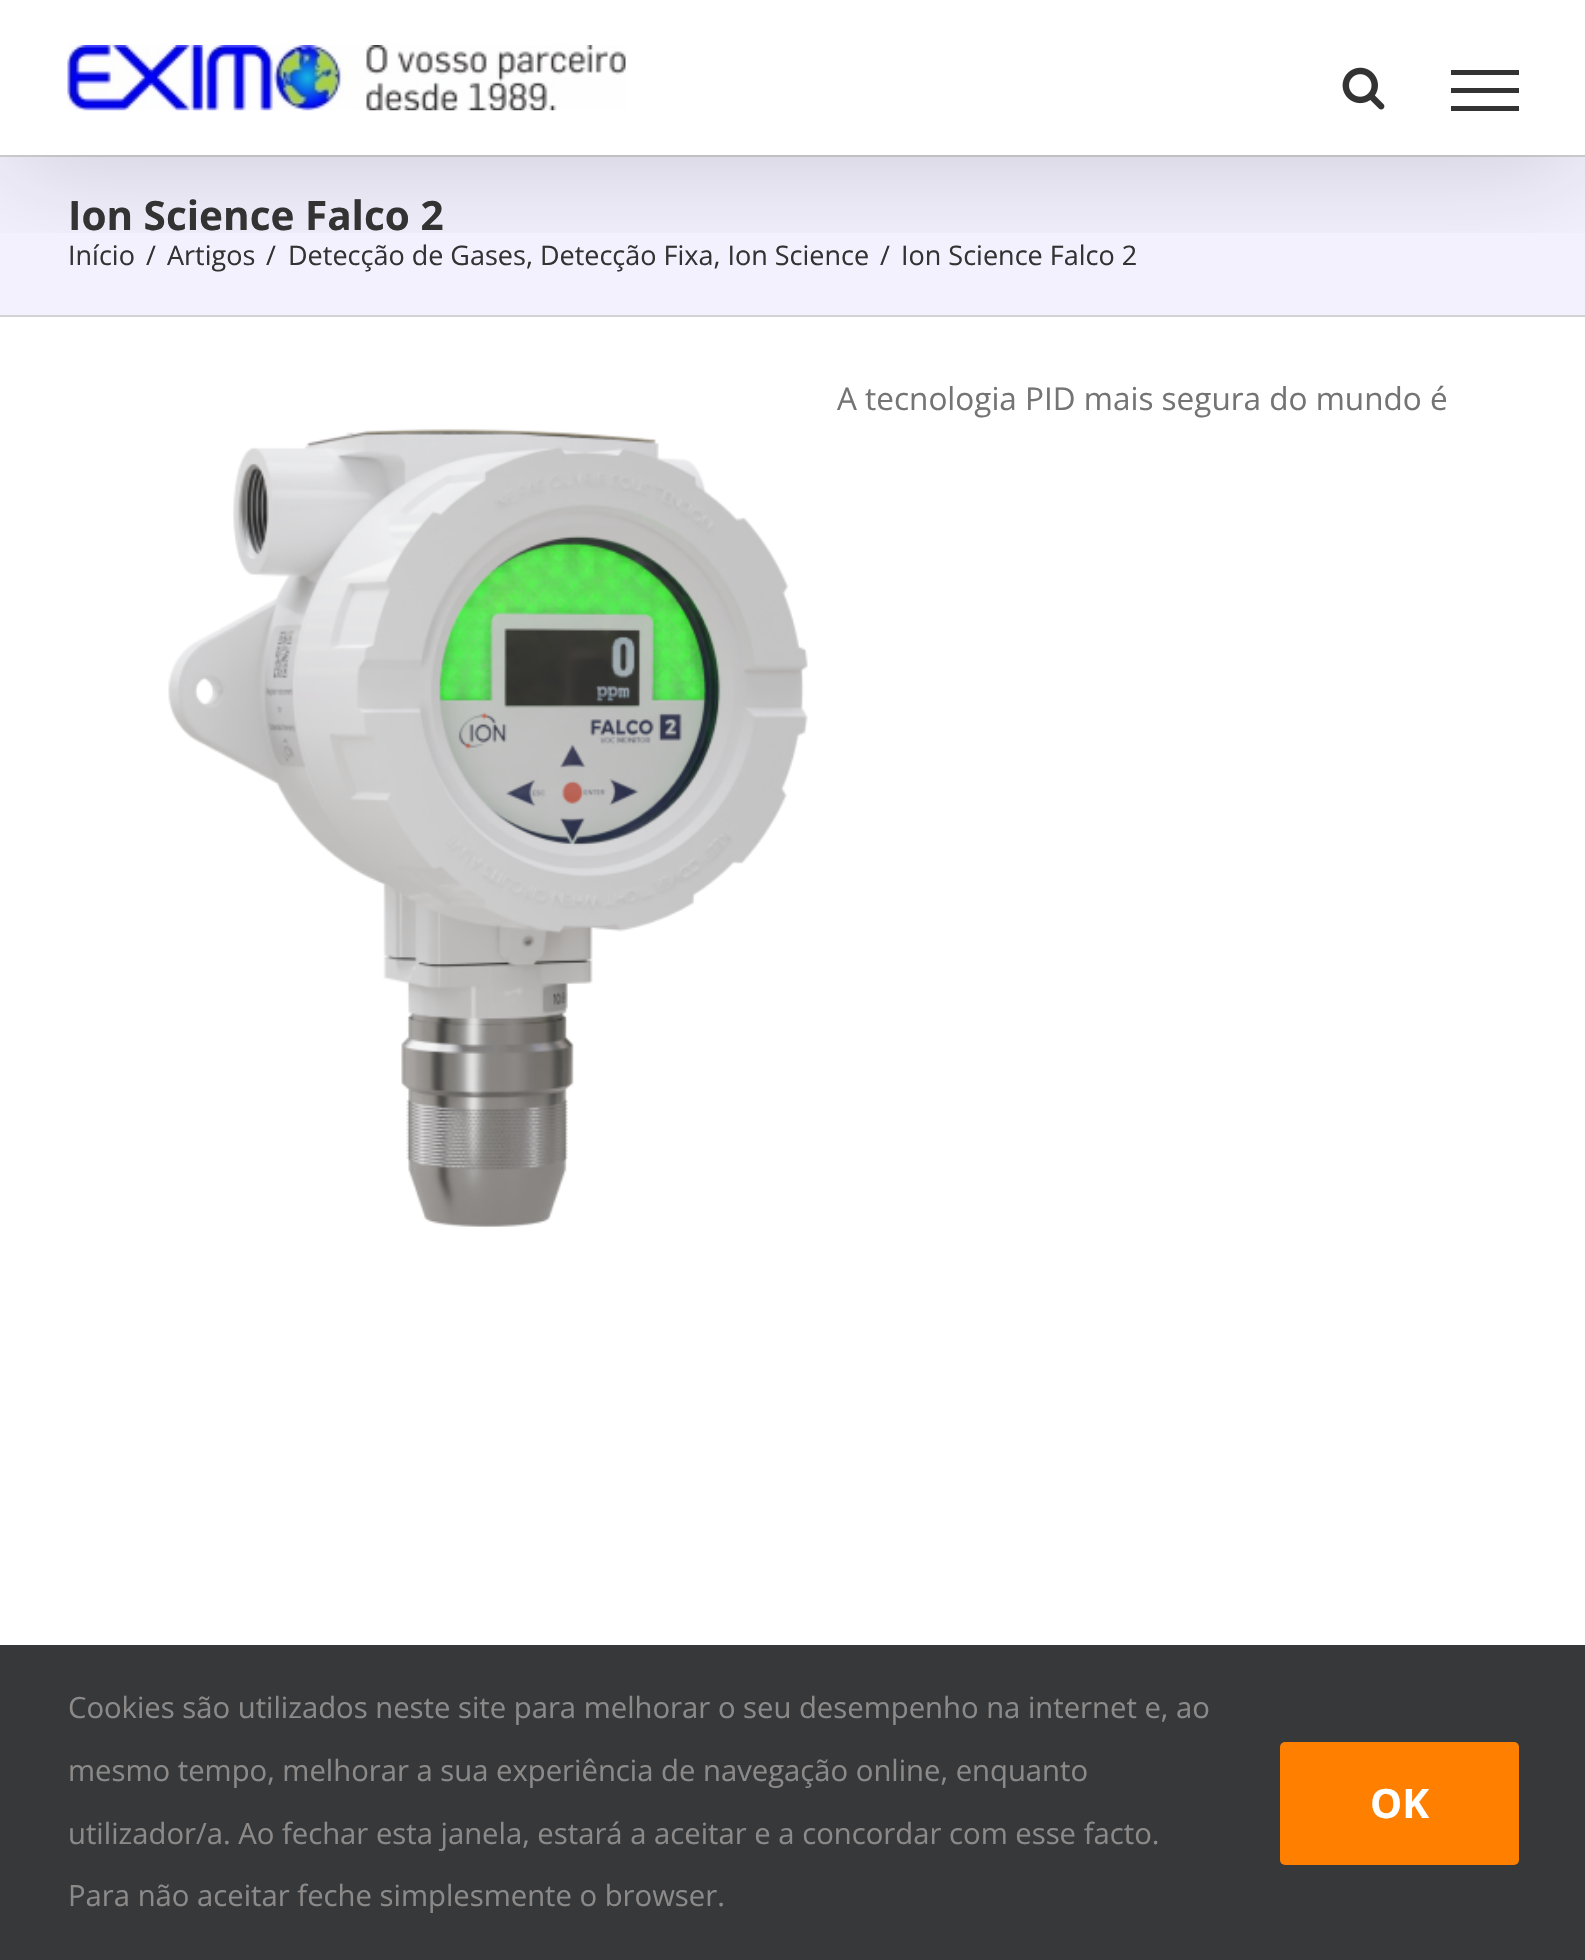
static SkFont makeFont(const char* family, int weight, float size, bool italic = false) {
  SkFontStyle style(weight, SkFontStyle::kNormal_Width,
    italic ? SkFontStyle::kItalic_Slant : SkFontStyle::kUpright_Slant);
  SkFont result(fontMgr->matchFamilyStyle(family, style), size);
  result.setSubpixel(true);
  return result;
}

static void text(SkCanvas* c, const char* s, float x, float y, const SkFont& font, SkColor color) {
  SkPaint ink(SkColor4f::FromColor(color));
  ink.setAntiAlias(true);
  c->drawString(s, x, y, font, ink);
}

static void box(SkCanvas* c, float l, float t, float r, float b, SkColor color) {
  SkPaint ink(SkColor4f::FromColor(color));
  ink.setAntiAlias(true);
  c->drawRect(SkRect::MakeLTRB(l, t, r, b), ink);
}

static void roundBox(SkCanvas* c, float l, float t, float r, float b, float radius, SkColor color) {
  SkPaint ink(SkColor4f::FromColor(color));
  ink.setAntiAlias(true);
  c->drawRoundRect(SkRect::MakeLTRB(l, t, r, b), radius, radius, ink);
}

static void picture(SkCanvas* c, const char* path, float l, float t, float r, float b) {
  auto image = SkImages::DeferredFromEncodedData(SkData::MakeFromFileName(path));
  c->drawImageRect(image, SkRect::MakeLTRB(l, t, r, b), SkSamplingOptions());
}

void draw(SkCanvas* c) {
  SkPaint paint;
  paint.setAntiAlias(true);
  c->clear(0xffffffff);
  box(c, 0, 157, 1585, 315, 0xfff4f1ff);
  box(c, 0, 155, 1585, 157, 0xffd2d3d4);
  box(c, 0, 315, 1585, 317, 0xffd2d3d4);
  c->save();
  c->clipRect(SkRect::MakeLTRB(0, 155, 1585, 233));
  paint.setColor(0x24000000);
  paint.setMaskFilter(SkMaskFilter::MakeBlur(kNormal_SkBlurStyle, 56));
  c->drawRect(SkRect::MakeLTRB(5, 27, 1582, 173), paint);
  paint.setMaskFilter(nullptr);
  c->restore();
  picture(c, "img_01.png", 67, 45, 626, 111);
  picture(c, "img_02.png", 1342, 67, 1385, 110);
  box(c, 1451, 70, 1519, 75, 0xff333333);
  box(c, 1451, 88, 1519, 93, 0xff333333);
  box(c, 1451, 106, 1519, 111, 0xff333333);
  SkFont face1 = makeFont("Open Sans", 700, 40.5f);
  text(c, "Ion Science Falco 2", 68, 230, face1, 0xff333333);
  SkFont face2 = makeFont("Open Sans", 400, 27);
  text(c, "Início", 68, 265, face2, 0xff333333);
  text(c, "/", 146, 265, face2, 0xff333333);
  text(c, "Artigos", 167, 265, face2, 0xff333333);
  text(c, "/", 266, 265, face2, 0xff333333);
  text(c, "Detecção de Gases, Detecção Fixa, Ion Science", 288, 265, face2, 0xff333333);
  text(c, "/", 880, 265, face2, 0xff333333);
  text(c, "Ion Science Falco 2", 901, 265, face2, 0xff333333);
  SkFont face3 = makeFont("Open Sans", 400, 31.5f);
  text(c, "A tecnologia PID mais segura do mundo é", 837, 410, face3, 0xff747474);
  picture(c, "img_03.png", 168, 428, 808, 1228);
  box(c, 0, 1645, 1585, 1960, 0xff363839);
  SkFont face4 = makeFont("Open Sans", 400, 29.25f);
  text(c, "Cookies são utilizados neste site para melhorar o seu desempenho na internet e, ao", 68, 1718, face4, 0xff8c8989);
  text(c, "mesmo tempo, melhorar a sua experiência de navegação online, enquanto", 68, 1781, face4, 0xff8c8989);
  text(c, "utilizador/a. Ao fechar esta janela, estará a aceitar e a concordar com esse facto.", 68, 1844, face4, 0xff8c8989);
  text(c, "Para não aceitar feche simplesmente o browser.", 68, 1906, face4, 0xff8c8989);
  roundBox(c, 1280, 1742, 1519, 1865, 5, 0xffff7f00);
  text(c, "OK", 1370, 1818, face1, 0xffffffff);
}
